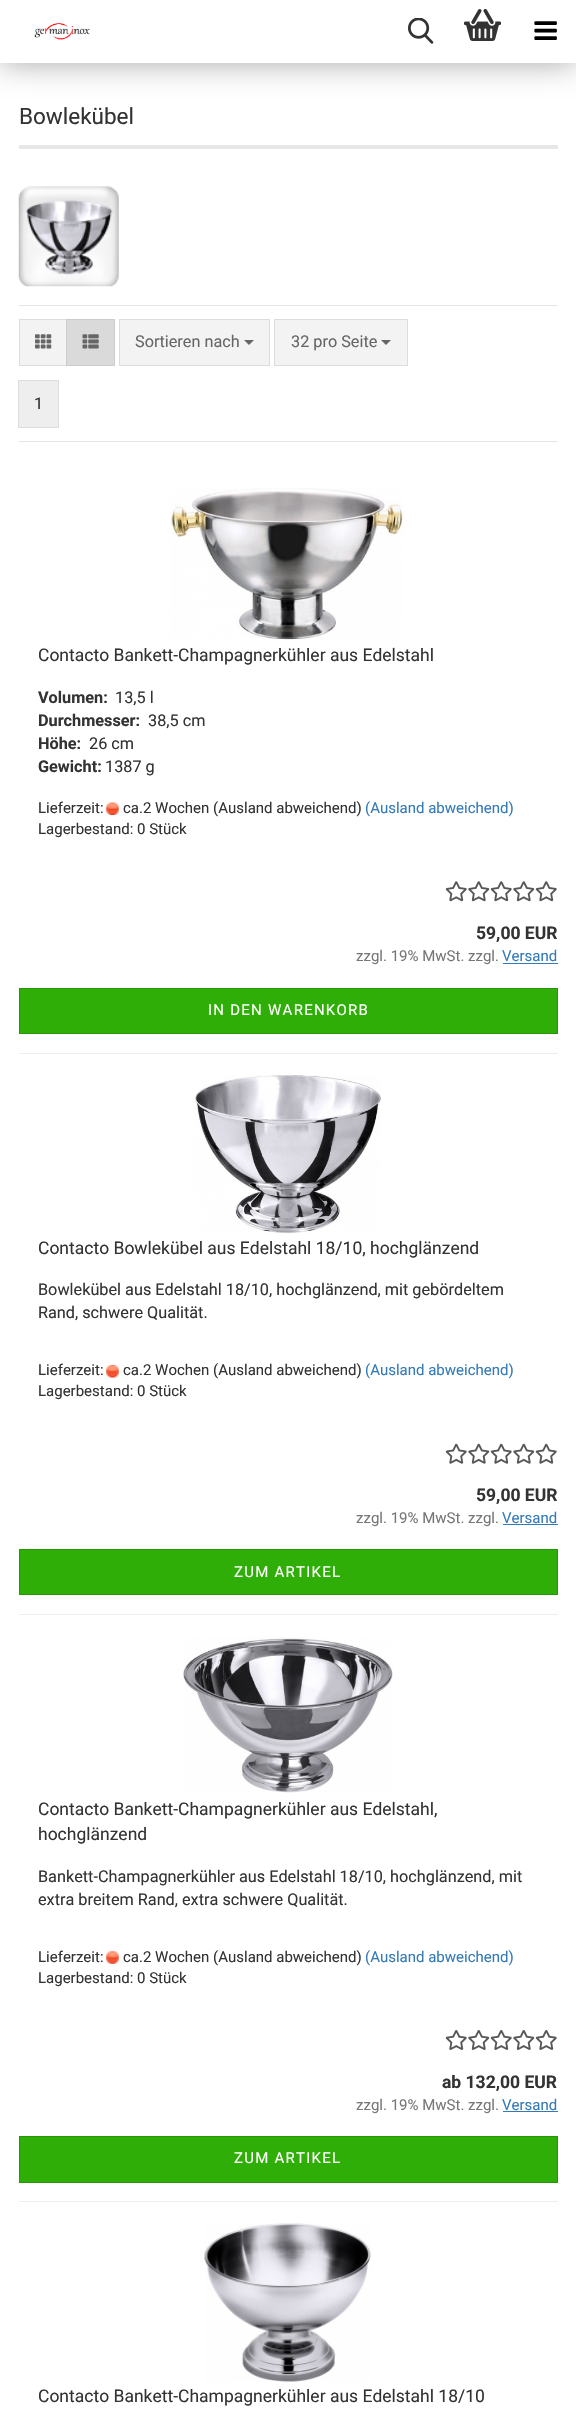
static SkFont makeFont(const char* family, int weight, float size, bool italic = false) {
  SkFontStyle style(weight, SkFontStyle::kNormal_Width,
    italic ? SkFontStyle::kItalic_Slant : SkFontStyle::kUpright_Slant);
  SkFont result(fontMgr->matchFamilyStyle(family, style), size);
  result.setSubpixel(true);
  return result;
}

static void text(SkCanvas* c, const char* s, float x, float y, const SkFont& font, SkColor color) {
  SkPaint ink(SkColor4f::FromColor(color));
  ink.setAntiAlias(true);
  c->drawString(s, x, y, font, ink);
}

static void spacedText(SkCanvas* c, const char* s, float x, float y, const SkFont& font, const SkPaint& ink, float letter, float word) {
  std::vector<SkGlyphID> glyphs(font.countText(s, strlen(s), SkTextEncoding::kUTF8));
  std::vector<float> xs(glyphs.size());
  font.textToGlyphs(s, strlen(s), SkTextEncoding::kUTF8, glyphs);
  font.getXPos(glyphs, xs, x);
  float extra = 0;
  for (size_t i = 0; i < glyphs.size(); i++) {
    xs[i] += extra;
    extra += letter + word * (glyphs[i] == font.unicharToGlyph(' '));
  }
  c->drawTextBlob(SkTextBlob::MakeFromPosHGlyphs(glyphs, xs, y, font), 0, 0, ink);
}

static void box(SkCanvas* c, float l, float t, float r, float b, SkColor color) {
  SkPaint ink(SkColor4f::FromColor(color));
  ink.setAntiAlias(true);
  c->drawRect(SkRect::MakeLTRB(l, t, r, b), ink);
}

static void picture(SkCanvas* c, const char* path, float l, float t, float r, float b) {
  auto image = SkImages::DeferredFromEncodedData(SkData::MakeFromFileName(path));
  c->drawImageRect(image, SkRect::MakeLTRB(l, t, r, b), SkSamplingOptions());
}

void draw(SkCanvas* c) {
  SkPaint paint;
  paint.setAntiAlias(true);
  c->clear(0xffffffff);
  paint.setColor(0x59000000);
  paint.setMaskFilter(SkMaskFilter::MakeBlur(kNormal_SkBlurStyle, 15.5f));
  c->drawRect(SkRect::MakeLTRB(0, 0, 576, 63), paint);
  paint.setMaskFilter(nullptr);
  box(c, 0, 0, 576, 63, 0xffffffff);
  picture(c, "img_01.png", 34, 23, 90, 40);
  picture(c, "img_02.png", 408, 18, 434, 44);
  picture(c, "img_03.png", 464, 8, 501, 41);
  picture(c, "img_04.png", 534, 21, 557, 40);
  box(c, 19, 145, 558, 149, 0xffe7e7e7);
  SkFont face1 = makeFont("Roboto", 400, 22.5f);
  text(c, "Bowlekübel", 19, 124, face1, 0xff333333);
  picture(c, "img_05.png", 18, 186, 119, 287);
  box(c, 19, 305, 558, 306, 0xffe7e7e7);
  box(c, 19, 441, 558, 442, 0xffe7e7e7);
  box(c, 20, 320, 66, 365, 0xfff3f3f3);
  paint.setStyle(SkPaint::kStroke_Style);
  paint.setStrokeWidth(1);
  paint.setColor(0xffdddddd);
  c->drawRect(SkRect::MakeLTRB(19.5f, 319.5f, 67.5f, 365.5f), paint);
  picture(c, "img_06.png", 35, 334, 52, 349);
  paint.setStyle(SkPaint::kFill_Style);
  paint.setColor(0xffdadada);
  c->drawRect(SkRect::MakeLTRB(66.5f, 319.5f, 114.5f, 365.5f), paint);
  paint.setStyle(SkPaint::kStroke_Style);
  paint.setColor(0xffcccccc);
  c->drawRect(SkRect::MakeLTRB(66.5f, 319.5f, 114.5f, 365.5f), paint);
  picture(c, "img_07.png", 82, 334, 99, 349);
  paint.setStyle(SkPaint::kFill_Style);
  paint.setColor(0xfff3f3f3);
  c->drawRect(SkRect::MakeLTRB(119.5f, 319.5f, 269.5f, 365.5f), paint);
  paint.setStyle(SkPaint::kStroke_Style);
  paint.setColor(0xffdddddd);
  c->drawRect(SkRect::MakeLTRB(119.5f, 319.5f, 269.5f, 365.5f), paint);
  SkFont face2 = makeFont("Roboto", 400, 16.25f);
  text(c, "Sortieren nach", 135, 347, face2, 0xff666666);
  paint.setStyle(SkPaint::kFill_Style);
  paint.setColor(0xff666666);
  c->drawPath(SkPathBuilder().moveTo(244, 340).lineTo(254, 340).lineTo(249, 345).close().detach(), paint);
  paint.setColor(0xfff3f3f3);
  c->drawRect(SkRect::MakeLTRB(274.5f, 319.5f, 407.5f, 365.5f), paint);
  paint.setStyle(SkPaint::kStroke_Style);
  paint.setColor(0xffdddddd);
  c->drawRect(SkRect::MakeLTRB(274.5f, 319.5f, 407.5f, 365.5f), paint);
  text(c, "32 pro Seite", 291, 347, face2, 0xff666666);
  paint.setStyle(SkPaint::kFill_Style);
  paint.setColor(0xff666666);
  c->drawPath(SkPathBuilder().moveTo(381, 340).lineTo(391, 340).lineTo(386, 345).close().detach(), paint);
  paint.setColor(0xffeeeeee);
  c->drawRect(SkRect::MakeLTRB(18.5f, 380.5f, 58.5f, 427.5f), paint);
  paint.setStyle(SkPaint::kStroke_Style);
  paint.setColor(0xffdddddd);
  c->drawRect(SkRect::MakeLTRB(18.5f, 380.5f, 58.5f, 427.5f), paint);
  text(c, "1", 34, 409, face2, 0xff333333);
  box(c, 19, 1053, 558, 1054, 0xffeeeeee);
  picture(c, "img_08.png", 170, 488, 404, 640);
  SkFont face3 = makeFont("Roboto", 400, 17.5f);
  text(c, "Contacto Bankett-Champagnerkühler aus Edelstahl", 38, 661, face3, 0xff333333);
  SkFont face4 = makeFont("Roboto", 700, 16.25f);
  text(c, "Volumen:", 38, 703, face4, 0xff333333);
  text(c, "13,5 l", 115, 703, face2, 0xff333333);
  text(c, "Durchmesser:", 38, 726, face4, 0xff333333);
  text(c, "38,5 cm", 148, 726, face2, 0xff333333);
  text(c, "Höhe:", 38, 749, face4, 0xff333333);
  text(c, "26 cm", 89, 749, face2, 0xff333333);
  text(c, "Gewicht:", 38, 772, face4, 0xff333333);
  text(c, "1387 g", 105, 772, face2, 0xff333333);
  SkFont face5 = makeFont("Roboto", 400, 15);
  text(c, "Lieferzeit:", 38, 813, face5, 0xff333333);
  picture(c, "img_09.png", 106, 802, 119, 815);
  text(c, "ca.2 Wochen (Ausland abweichend)", 123, 813, face5, 0xff333333);
  text(c, "(Ausland abweichend)", 365, 813, face5, 0xff337ab7);
  text(c, "Lagerbestand: 0 Stück", 38, 834, face5, 0xff333333);
  picture(c, "img_10.png", 445, 881, 467, 902);
  picture(c, "img_11.png", 468, 881, 490, 902);
  picture(c, "img_10.png", 490, 881, 512, 902);
  picture(c, "img_11.png", 513, 881, 535, 902);
  picture(c, "img_10.png", 535, 881, 557, 902);
  SkFont face6 = makeFont("Roboto", 700, 17.5f);
  text(c, "59,00 EUR", 476, 939, face6, 0xff333333);
  text(c, "zzgl. 19% MwSt. zzgl.", 356, 961, face5, 0xff777777);
  text(c, "Versand", 502, 961, face5, 0xff337ab7);
  box(c, 503, 963, 558, 964, 0xff337ab7);
  paint.setStyle(SkPaint::kFill_Style);
  paint.setColor(0xff2eae06);
  c->drawRect(SkRect::MakeLTRB(19.5f, 988.5f, 557.5f, 1033.5f), paint);
  paint.setStyle(SkPaint::kStroke_Style);
  paint.setColor(0xff279505);
  c->drawRect(SkRect::MakeLTRB(19.5f, 988.5f, 557.5f, 1033.5f), paint);
  paint.setStyle(SkPaint::kFill_Style);
  paint.setColor(0xffffffff);
  spacedText(c, "IN DEN WARENKORB", 208, 1015, face5, paint, 1.25f, 0);
  box(c, 19, 1614, 558, 1615, 0xffeeeeee);
  picture(c, "img_12.png", 193, 1075, 381, 1234);
  text(c, "Contacto Bowlekübel aus Edelstahl 18/10, hochglänzend", 38, 1254, face3, 0xff333333);
  text(c, "Bowlekübel aus Edelstahl 18/10, hochglänzend, mit gebördeltem", 38, 1295, face2, 0xff333333);
  text(c, "Rand, schwere Qualität.", 38, 1318, face2, 0xff333333);
  text(c, "Lieferzeit:", 38, 1375, face5, 0xff333333);
  picture(c, "img_13.png", 106, 1365, 119, 1378);
  text(c, "ca.2 Wochen (Ausland abweichend)", 123, 1375, face5, 0xff333333);
  text(c, "(Ausland abweichend)", 365, 1375, face5, 0xff337ab7);
  text(c, "Lagerbestand: 0 Stück", 38, 1396, face5, 0xff333333);
  picture(c, "img_14.png", 445, 1443, 467, 1464);
  picture(c, "img_15.png", 468, 1443, 490, 1464);
  picture(c, "img_14.png", 490, 1443, 512, 1464);
  picture(c, "img_15.png", 513, 1443, 535, 1464);
  picture(c, "img_14.png", 535, 1443, 557, 1464);
  text(c, "59,00 EUR", 476, 1501, face6, 0xff333333);
  text(c, "zzgl. 19% MwSt. zzgl.", 356, 1523, face5, 0xff777777);
  text(c, "Versand", 502, 1523, face5, 0xff337ab7);
  box(c, 503, 1524, 558, 1525, 0xff337ab7);
  paint.setColor(0xff2eae06);
  c->drawRect(SkRect::MakeLTRB(19.5f, 1549.5f, 557.5f, 1594.5f), paint);
  paint.setStyle(SkPaint::kStroke_Style);
  paint.setColor(0xff279505);
  c->drawRect(SkRect::MakeLTRB(19.5f, 1549.5f, 557.5f, 1594.5f), paint);
  paint.setStyle(SkPaint::kFill_Style);
  paint.setColor(0xffffffff);
  spacedText(c, "ZUM ARTIKEL", 234, 1577, face5, paint, 1.25f, 0);
  box(c, 19, 2201, 558, 2202, 0xffeeeeee);
  picture(c, "img_16.png", 183, 1637, 393, 1793);
  text(c, "Contacto Bankett-Champagnerkühler aus Edelstahl,", 38, 1815, face3, 0xff333333);
  text(c, "hochglänzend", 38, 1840, face3, 0xff333333);
  text(c, "Bankett-Champagnerkühler aus Edelstahl 18/10, hochglänzend, mit", 38, 1882, face2, 0xff333333);
  text(c, "extra breitem Rand, extra schwere Qualität.", 38, 1905, face2, 0xff333333);
  text(c, "Lieferzeit:", 38, 1962, face5, 0xff333333);
  picture(c, "img_17.png", 106, 1951, 119, 1964);
  text(c, "ca.2 Wochen (Ausland abweichend)", 123, 1962, face5, 0xff333333);
  text(c, "(Ausland abweichend)", 365, 1962, face5, 0xff337ab7);
  text(c, "Lagerbestand: 0 Stück", 38, 1983, face5, 0xff333333);
  picture(c, "img_18.png", 445, 2030, 467, 2050);
  picture(c, "img_19.png", 468, 2030, 490, 2050);
  picture(c, "img_18.png", 490, 2030, 512, 2050);
  picture(c, "img_19.png", 513, 2030, 535, 2050);
  picture(c, "img_18.png", 535, 2030, 557, 2050);
  text(c, "ab 132,00 EUR", 442, 2088, face6, 0xff333333);
  text(c, "zzgl. 19% MwSt. zzgl.", 356, 2110, face5, 0xff777777);
  text(c, "Versand", 502, 2110, face5, 0xff337ab7);
  box(c, 503, 2111, 558, 2112, 0xff337ab7);
  paint.setColor(0xff2eae06);
  c->drawRect(SkRect::MakeLTRB(19.5f, 2136.5f, 557.5f, 2182.5f), paint);
  paint.setStyle(SkPaint::kStroke_Style);
  paint.setColor(0xff279505);
  c->drawRect(SkRect::MakeLTRB(19.5f, 2136.5f, 557.5f, 2182.5f), paint);
  paint.setStyle(SkPaint::kFill_Style);
  paint.setColor(0xffffffff);
  spacedText(c, "ZUM ARTIKEL", 234, 2163, face5, paint, 1.25f, 0);
  picture(c, "img_20.png", 204, 2223, 371, 2382);
  text(c, "Contacto Bankett-Champagnerkühler aus Edelstahl 18/10", 38, 2402, face3, 0xff333333);
}
